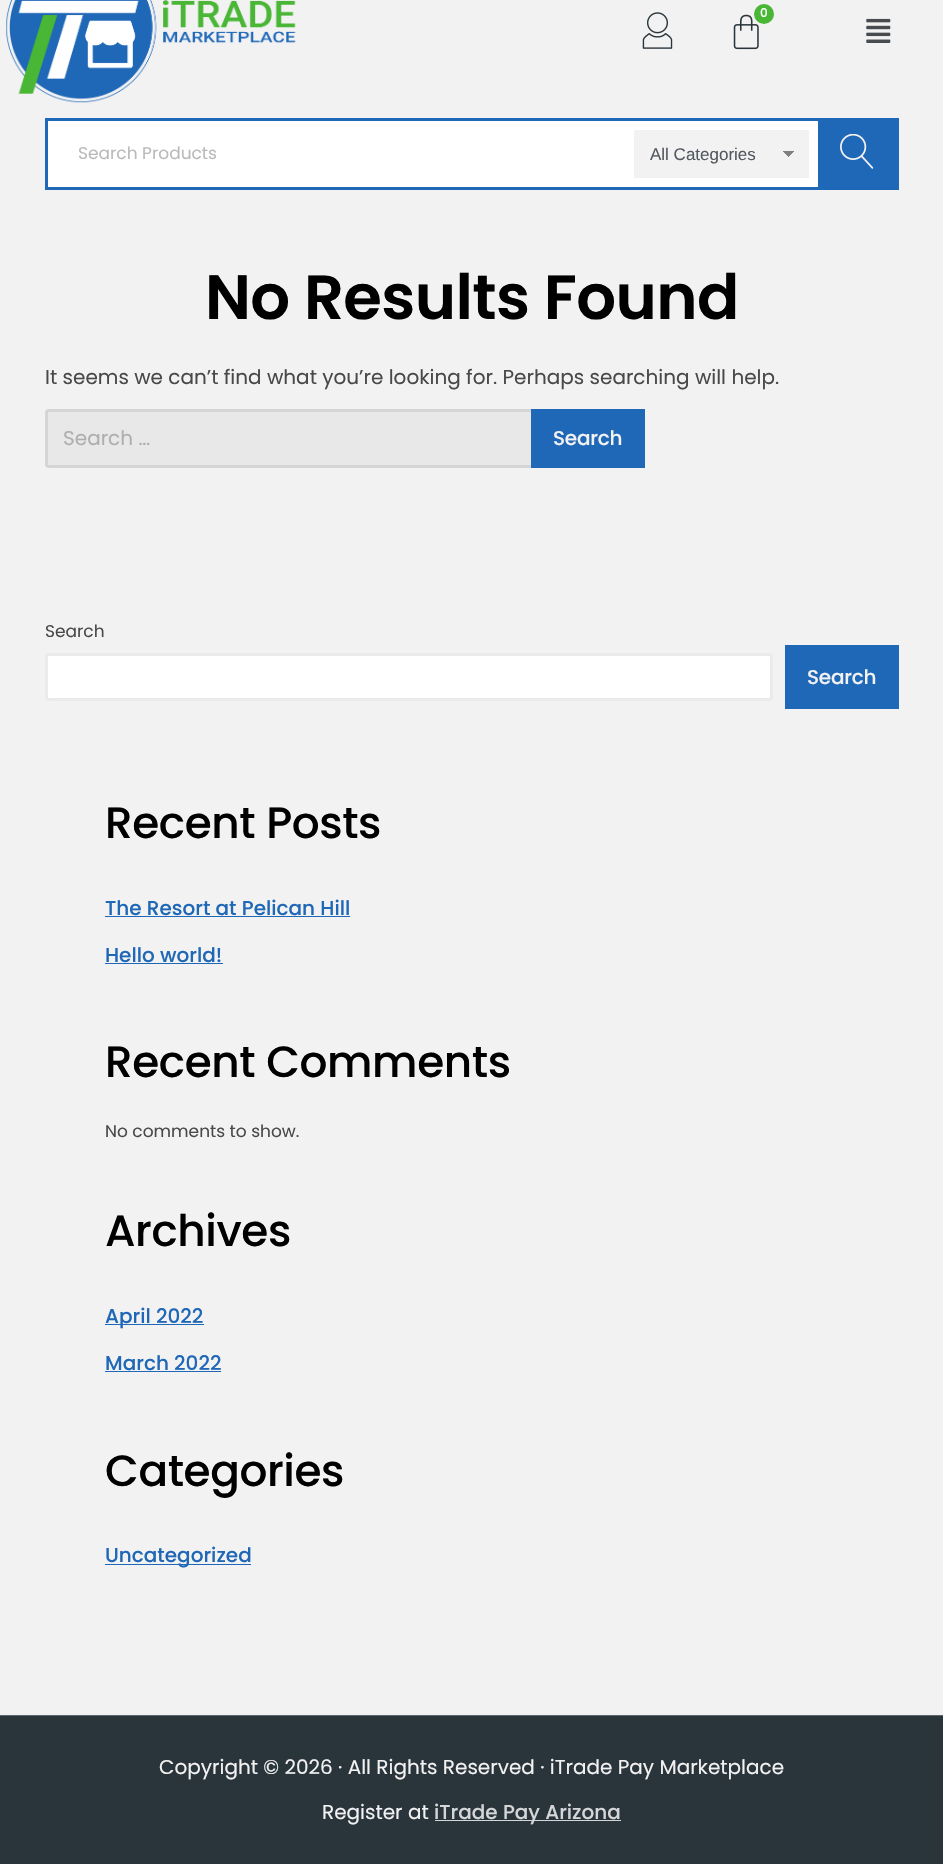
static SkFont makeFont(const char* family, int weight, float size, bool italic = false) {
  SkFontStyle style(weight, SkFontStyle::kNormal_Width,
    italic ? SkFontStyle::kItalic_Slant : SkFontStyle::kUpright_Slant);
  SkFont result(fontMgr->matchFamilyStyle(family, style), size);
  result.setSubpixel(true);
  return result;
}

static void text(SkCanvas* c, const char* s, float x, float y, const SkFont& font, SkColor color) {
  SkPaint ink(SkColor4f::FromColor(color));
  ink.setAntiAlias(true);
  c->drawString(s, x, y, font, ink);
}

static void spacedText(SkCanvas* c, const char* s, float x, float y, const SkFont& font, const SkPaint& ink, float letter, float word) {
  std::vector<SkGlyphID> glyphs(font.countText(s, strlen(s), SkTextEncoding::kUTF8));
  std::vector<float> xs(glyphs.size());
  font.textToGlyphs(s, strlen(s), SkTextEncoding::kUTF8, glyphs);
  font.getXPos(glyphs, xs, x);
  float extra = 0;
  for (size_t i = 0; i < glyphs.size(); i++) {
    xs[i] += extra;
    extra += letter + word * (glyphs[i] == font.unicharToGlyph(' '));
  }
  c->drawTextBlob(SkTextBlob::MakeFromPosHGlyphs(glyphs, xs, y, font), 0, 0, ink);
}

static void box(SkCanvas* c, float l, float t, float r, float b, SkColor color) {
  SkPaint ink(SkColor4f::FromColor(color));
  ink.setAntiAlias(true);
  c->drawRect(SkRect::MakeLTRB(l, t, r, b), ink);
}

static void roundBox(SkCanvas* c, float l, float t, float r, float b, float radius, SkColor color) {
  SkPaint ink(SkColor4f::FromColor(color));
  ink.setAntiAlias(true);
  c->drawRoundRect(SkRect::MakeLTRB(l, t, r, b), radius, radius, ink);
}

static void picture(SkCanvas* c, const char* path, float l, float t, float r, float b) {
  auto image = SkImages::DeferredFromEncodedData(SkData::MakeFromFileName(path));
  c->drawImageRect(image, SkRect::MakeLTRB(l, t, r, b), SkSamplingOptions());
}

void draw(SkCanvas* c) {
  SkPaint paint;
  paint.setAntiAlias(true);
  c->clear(0xfff2f2f2);
  picture(c, "img_01.png", 6, 0, 296, 103);
  picture(c, "img_02.png", 642, 12, 673, 49);
  picture(c, "img_03.png", 733, 14, 759, 50);
  paint.setColor(0xff4ab636);
  c->drawCircle(764, 14, 10, paint);
  SkFont face1 = makeFont("Poppins", 500, 12);
  paint.setColor(0xffffffff);
  spacedText(c, "0", 760, 17, face1, paint, -0.6f, 0);
  picture(c, "img_04.png", 866, 18, 891, 43);
  box(c, 48, 121, 818, 187, 0xffffffff);
  paint.setStyle(SkPaint::kStroke_Style);
  paint.setStrokeWidth(3);
  paint.setColor(0xff1f67b7);
  c->drawRect(SkRect::MakeLTRB(46.5f, 119.5f, 897.5f, 188.5f), paint);
  SkFont face2 = makeFont("Poppins", 400, 17);
  text(c, "Search Products", 78, 159, face2, 0xffbababa);
  box(c, 634, 130, 809, 178, 0xfff2f2f2);
  paint.setStyle(SkPaint::kFill_Style);
  {
    const SkColor colors[] = {0xff808080, 0xfff2f2f2};
    const float stops[] = {0.5f, 0.5f};
    const SkPoint ends[] = {{789, 151}, {795, 157}};
    paint.setShader(SkGradientShader::MakeLinear(ends, colors, stops, 2, SkTileMode::kClamp));
    paint.setAlpha(255);
  }
  c->drawRect(SkRect::MakeLTRB(789, 151, 795, 158), paint);
  {
    const SkColor colors[] = {0xfff2f2f2, 0xff808080};
    const float stops[] = {0.5f, 0.5f};
    const SkPoint ends[] = {{783, 157}, {789, 151}};
    paint.setShader(SkGradientShader::MakeLinear(ends, colors, stops, 2, SkTileMode::kClamp));
    paint.setAlpha(255);
  }
  c->drawRect(SkRect::MakeLTRB(783, 151, 789, 158), paint);
  SkFont face3 = makeFont("Liberation Sans", 400, 17);
  text(c, "All Categories", 650, 160, face3, 0xff54595f);
  box(c, 818, 121, 896, 187, 0xff1f67b7);
  picture(c, "img_05.png", 840, 134, 874, 169);
  SkFont face4 = makeFont("Poppins", 600, 62.5f);
  paint.setShader(nullptr);
  paint.setColor(0xff000000);
  spacedText(c, "No Results Found", 205, 319, face4, paint, -0.6f, 0);
  SkFont face5 = makeFont("Poppins", 400, 20);
  text(c, "It seems we can’t find what you’re looking for. Perhaps searching will help.", 45, 384, face5, 0xff494949);
  roundBox(c, 45, 409, 536, 468, 4, 0xffe8e8e8);
  paint.setStyle(SkPaint::kStroke_Style);
  paint.setColor(0x14000000);
  c->drawRoundRect(SkRect::MakeLTRB(46.5f, 410.5f, 534.5f, 466.5f), 2.5f, 2.5f, paint);
  text(c, "Search …", 63, 445, face5, 0xffafafaf);
  box(c, 531, 409, 645, 468, 0xff1f67b7);
  SkFont face6 = makeFont("Poppins", 500, 20);
  paint.setStyle(SkPaint::kFill_Style);
  paint.setColor(0xfff2f2f2);
  spacedText(c, "Search", 553, 445, face6, paint, -0.25f, 0);
  text(c, "Search", 45, 637, face2, 0xff494949);
  roundBox(c, 45, 653, 773, 701, 4, 0xffffffff);
  paint.setStyle(SkPaint::kStroke_Style);
  paint.setColor(0x14000000);
  c->drawRoundRect(SkRect::MakeLTRB(46.5f, 654.5f, 771.5f, 699.5f), 2.5f, 2.5f, paint);
  box(c, 785, 645, 899, 709, 0xff1f67b7);
  paint.setStyle(SkPaint::kFill_Style);
  paint.setColor(0xfff2f2f2);
  spacedText(c, "Search", 807, 684, face6, paint, -0.25f, 0);
  SkFont face7 = makeFont("Poppins", 500, 43.75f);
  paint.setColor(0xff000000);
  spacedText(c, "Recent Posts", 105, 838, face7, paint, -0.4f, 0);
  text(c, "The Resort at Pelican Hill", 105, 915, face6, 0xff1f67b7);
  box(c, 105, 916, 350, 917, 0xff1f67b7);
  text(c, "Hello world!", 105, 962, face6, 0xff1f67b7);
  box(c, 105, 963, 223, 964, 0xff1f67b7);
  spacedText(c, "Recent Comments", 105, 1077, face7, paint, -0.4f, 0);
  text(c, "No comments to show.", 105, 1137, face2, 0xff494949);
  spacedText(c, "Archives", 105, 1246, face7, paint, -0.4f, 0);
  box(c, 105, 1324, 204, 1325, 0xff1f67b7);
  text(c, "April 2022", 105, 1323, face6, 0xff1f67b7);
  text(c, "March 2022", 105, 1370, face6, 0xff1f67b7);
  box(c, 105, 1371, 221, 1372, 0xff1f67b7);
  spacedText(c, "Categories", 105, 1486, face7, paint, -0.4f, 0);
  box(c, 105, 1564, 251, 1565, 0xff1f67b7);
  text(c, "Uncategorized", 105, 1562, face6, 0xff1f67b7);
  box(c, 0, 1716, 943, 1864, 0xff2a343b);
  box(c, 0, 1715, 943, 1716, 0xff5d656a);
  text(c, "Copyright © 2026 · All Rights Reserved · iTrade Pay Marketplace", 159, 1774, face5, 0xfff2f2f2);
  text(c, "Register at", 322, 1819, face5, 0xfff2f2f2);
  box(c, 435, 1820, 621, 1821, 0xffd4d6d8);
  text(c, "iTrade Pay Arizona", 434, 1819, face6, 0xffd5d6d8);
}
